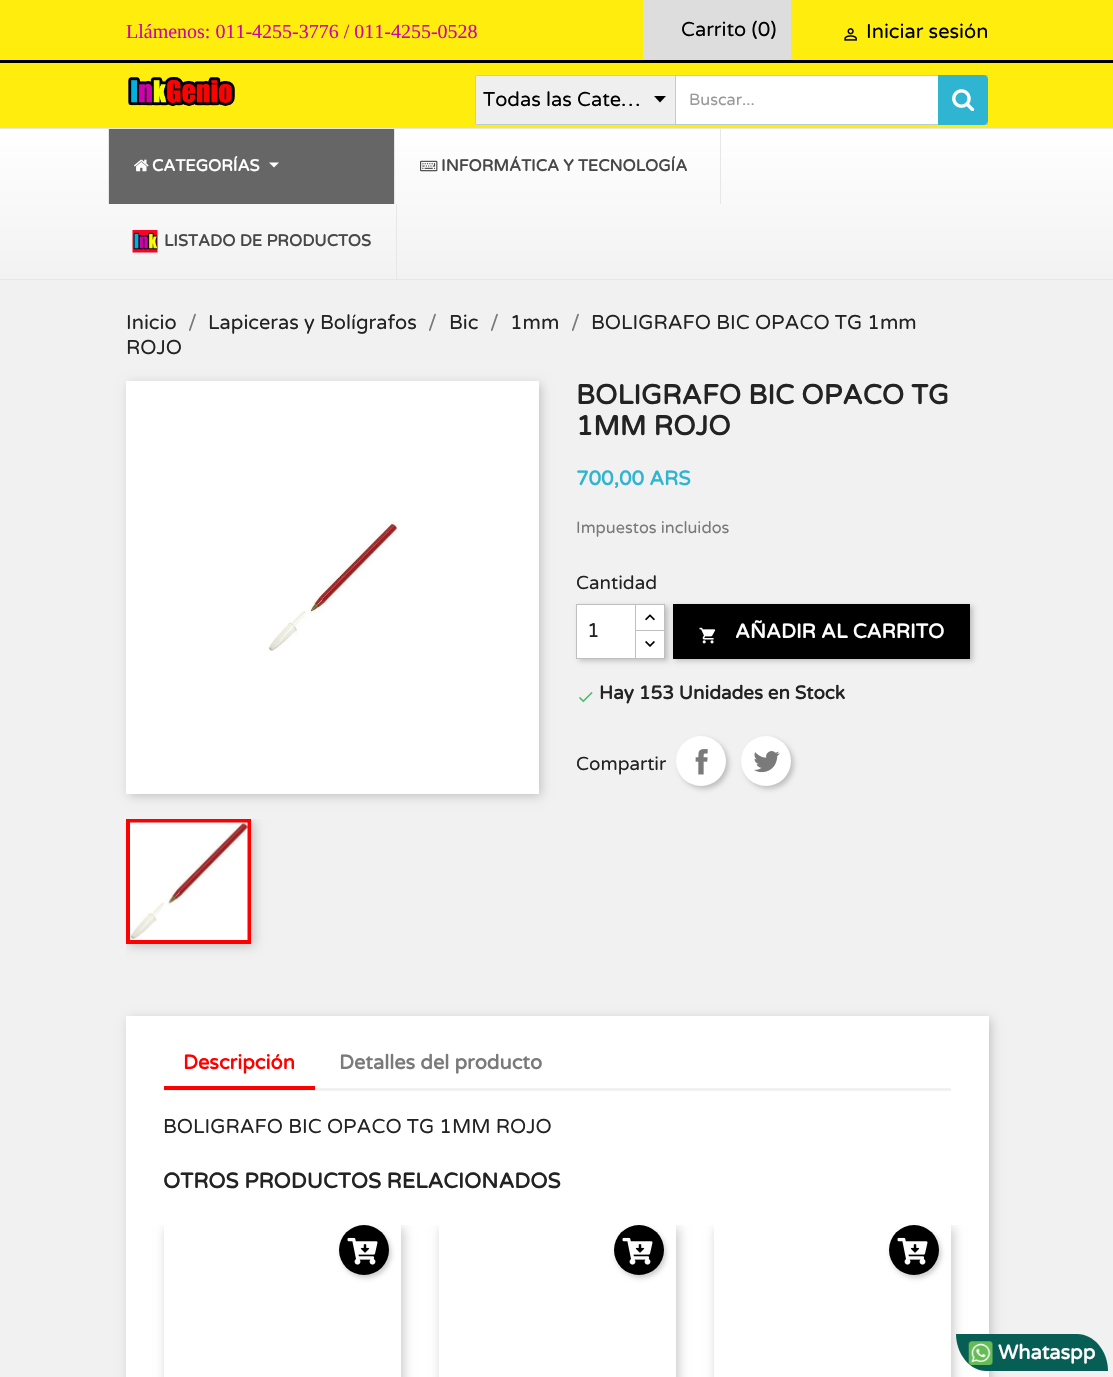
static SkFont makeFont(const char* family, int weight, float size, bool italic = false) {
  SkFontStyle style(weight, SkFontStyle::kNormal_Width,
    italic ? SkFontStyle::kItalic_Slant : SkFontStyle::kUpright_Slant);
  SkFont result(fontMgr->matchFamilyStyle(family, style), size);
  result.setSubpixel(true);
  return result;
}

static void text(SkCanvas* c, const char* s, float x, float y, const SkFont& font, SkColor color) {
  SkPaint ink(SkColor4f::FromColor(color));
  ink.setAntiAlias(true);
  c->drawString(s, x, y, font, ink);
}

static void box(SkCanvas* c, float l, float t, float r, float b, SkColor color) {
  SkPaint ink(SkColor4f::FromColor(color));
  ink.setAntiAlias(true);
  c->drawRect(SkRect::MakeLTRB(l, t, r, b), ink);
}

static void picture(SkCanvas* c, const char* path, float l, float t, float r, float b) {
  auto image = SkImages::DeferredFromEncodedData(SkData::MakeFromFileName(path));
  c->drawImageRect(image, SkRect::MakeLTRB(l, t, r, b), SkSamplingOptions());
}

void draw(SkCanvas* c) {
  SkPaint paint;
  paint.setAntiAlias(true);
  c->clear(0xffffed0e);
  box(c, 0, 60, 1113, 63, 0xff000000);
  SkFont face1 = makeFont("Liberation Serif", 400, 20);
  text(c, "Llámenos: 011-4255-3776 / 011-4255-0528", 126, 38, face1, 0xffd002ac);
  box(c, 643, 0, 791, 60, 0xffdddddd);
  SkFont face2 = makeFont("Varela Round", 400, 20);
  text(c, "Carrito (0)", 681, 36, face2, 0xff000000);
  picture(c, "img_01.png", 844, 28, 857, 41);
  text(c, "Iniciar sesión", 866, 38, face2, 0xff000000);
  picture(c, "img_02.png", 128, 76, 236, 107);
  paint.setColor(0xffefefef);
  c->drawPath(SkPathBuilder().moveTo(477.5f, 75).lineTo(675, 75).lineTo(675, 125).lineTo(477.5f, 125).cubicTo(476, 125, 475, 124, 475, 122.5f).lineTo(475, 77.5f).cubicTo(475, 76, 476, 75, 477.5f, 75).close().detach(), paint);
  paint.setColor(0xff000000);
  c->drawPath(SkPathBuilder().moveTo(654, 96).lineTo(660, 102.5f).lineTo(666, 96).close().detach(), paint);
  box(c, 476, 75, 675, 76, 0xffbbcdd2);
  box(c, 476, 124, 675, 125, 0xffbbcdd2);
  box(c, 475, 76, 476, 124, 0xffbbcdd2);
  text(c, "Todas las Cate…", 483, 106, face2, 0xff000000);
  paint.setColor(0xffffffff);
  c->drawRect(SkRect::MakeLTRB(675.5f, 75.5f, 987.5f, 124.5f), paint);
  paint.setStyle(SkPaint::kStroke_Style);
  paint.setStrokeWidth(1);
  paint.setColor(0xffbbcdd2);
  c->drawRect(SkRect::MakeLTRB(675.5f, 75.5f, 987.5f, 124.5f), paint);
  SkFont face3 = makeFont("Varela Round", 400, 16.25f);
  text(c, "Buscar...", 689, 105, face3, 0xff999999);
  paint.setStyle(SkPaint::kFill_Style);
  paint.setColor(0xff2fb5d2);
  c->drawPath(SkPathBuilder().moveTo(938, 75).lineTo(984, 75).cubicTo(986, 75, 988, 77, 988, 79).lineTo(988, 121).cubicTo(988, 123, 986, 125, 984, 125).lineTo(938, 125).close().detach(), paint);
  picture(c, "img_03.png", 952, 89, 975, 111);
  {
    const SkColor colors[] = {0xffffffff, 0xfff2f2f2};
    const float stops[] = {0, 1};
    const SkPoint ends[] = {{557, 129}, {557, 279}};
    paint.setShader(SkGradientShader::MakeLinear(ends, colors, stops, 2, SkTileMode::kClamp));
    paint.setAlpha(255);
  }
  c->drawRect(SkRect::MakeLTRB(0, 129, 1113, 279), paint);
  box(c, 0, 128, 1113, 129, 0xffe7e7e7);
  box(c, 0, 279, 1113, 280, 0xffe7e7e7);
  box(c, 394, 129, 395, 204, 0xffe7e7e7);
  box(c, 108, 129, 109, 204, 0xffe7e7e7);
  box(c, 109, 129, 394, 204, 0xff666666);
  picture(c, "img_04.png", 134, 159, 149, 172);
  SkFont face4 = makeFont("Varela Round", 700, 16.25f);
  text(c, "CATEGORÍAS", 152, 171, face4, 0xffffffff);
  paint.setShader(nullptr);
  paint.setColor(0xffffffff);
  c->drawPath(SkPathBuilder().moveTo(269, 162.5f).lineTo(279, 162.5f).lineTo(274, 167.5f).close().detach(), paint);
  box(c, 720, 129, 721, 204, 0xffe7e7e7);
  picture(c, "img_05.png", 420, 160, 438, 172);
  text(c, "INFORMÁTICA Y TECNOLOGÍA", 441, 171, face4, 0xff484848);
  box(c, 396, 204, 397, 279, 0xffe7e7e7);
  picture(c, "img_06.png", 132, 230, 158, 253);
  text(c, "LISTADO DE PRODUCTOS", 164, 246, face4, 0xff484848);
  box(c, 0, 280, 1113, 1377, 0xfff1f1f1);
  text(c, "Inicio", 126, 329, face2, 0xff232323);
  text(c, "/", 188, 329, face2, 0xff7a7a7a);
  text(c, "Lapiceras y Bolígrafos", 208, 329, face2, 0xff232323);
  text(c, "/", 428, 329, face2, 0xff7a7a7a);
  text(c, "Bic", 449, 329, face2, 0xff232323);
  text(c, "/", 490, 329, face2, 0xff7a7a7a);
  text(c, "1mm", 510, 329, face2, 0xff232323);
  text(c, "/", 571, 329, face2, 0xff7a7a7a);
  text(c, "BOLIGRAFO BIC OPACO TG 1mm", 591, 329, face2, 0xff232323);
  text(c, "ROJO", 126, 354, face2, 0xff232323);
  paint.setColor(0x33000000);
  paint.setMaskFilter(SkMaskFilter::MakeBlur(kNormal_SkBlurStyle, 5));
  c->drawRect(SkRect::MakeLTRB(129, 384, 541, 796), paint);
  paint.setMaskFilter(nullptr);
  box(c, 126, 381, 539, 794, 0xffffffff);
  picture(c, "img_07.png", 268, 521, 399, 652);
  c->save();
  c->clipRect(SkRect::MakeLTRB(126, 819, 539, 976));
  paint.setMaskFilter(SkMaskFilter::MakeBlur(kNormal_SkBlurStyle, 5));
  c->drawRect(SkRect::MakeLTRB(129, 821, 254, 946), paint);
  paint.setMaskFilter(nullptr);
  c->restore();
  paint.setStyle(SkPaint::kStroke_Style);
  paint.setStrokeWidth(4);
  paint.setColor(0xffff0000);
  c->drawRect(SkRect::MakeLTRB(128, 821, 249, 942), paint);
  picture(c, "img_08.png", 130, 822, 248, 940);
  SkFont face5 = makeFont("Varela Round", 700, 27.5f);
  text(c, "BOLIGRAFO BIC OPACO TG", 576, 404, face5, 0xff232323);
  text(c, "1MM ROJO", 576, 435, face5, 0xff232323);
  SkFont face6 = makeFont("Varela Round", 700, 20);
  text(c, "700,00 ARS", 576, 485, face6, 0xff2fb5d2);
  text(c, "Impuestos incluidos", 576, 533, face3, 0xff7a7a7a);
  SkFont face7 = makeFont("Varela Round", 400, 18.75f);
  text(c, "Cantidad", 576, 589, face7, 0xff232323);
  paint.setStyle(SkPaint::kFill_Style);
  paint.setColor(0x33000000);
  paint.setMaskFilter(SkMaskFilter::MakeBlur(kNormal_SkBlurStyle, 2.5f));
  c->drawRect(SkRect::MakeLTRB(675, 606, 973, 661), paint);
  paint.setMaskFilter(nullptr);
  box(c, 673, 604, 970, 659, 0xff000000);
  paint.setMaskFilter(SkMaskFilter::MakeBlur(kNormal_SkBlurStyle, 2.5f));
  c->drawRect(SkRect::MakeLTRB(579, 606, 668, 661), paint);
  paint.setMaskFilter(nullptr);
  box(c, 636, 605, 664, 630, 0xffffffff);
  paint.setStyle(SkPaint::kStroke_Style);
  paint.setStrokeWidth(1);
  paint.setColor(0xffbfbfbf);
  c->drawRect(SkRect::MakeLTRB(635.5f, 604.5f, 664.5f, 632.5f), paint);
  paint.setStyle(SkPaint::kFill_Style);
  paint.setColor(0xffffffff);
  c->drawRect(SkRect::MakeLTRB(635.5f, 630.5f, 664.5f, 658.5f), paint);
  paint.setStyle(SkPaint::kStroke_Style);
  paint.setColor(0xffbfbfbf);
  c->drawRect(SkRect::MakeLTRB(635.5f, 630.5f, 664.5f, 658.5f), paint);
  paint.setStyle(SkPaint::kFill_Style);
  paint.setColor(0xffffffff);
  c->drawRect(SkRect::MakeLTRB(576.5f, 604.5f, 635.5f, 658.5f), paint);
  paint.setStyle(SkPaint::kStroke_Style);
  paint.setColor(0xffbfbfbf);
  c->drawRect(SkRect::MakeLTRB(576.5f, 604.5f, 635.5f, 658.5f), paint);
  text(c, "1", 587, 637, face2, 0xff232323);
  picture(c, "img_09.png", 645, 614, 655, 621);
  picture(c, "img_10.png", 645, 641, 655, 647);
  picture(c, "img_11.png", 699, 627, 716, 644);
  text(c, "AÑADIR AL CARRITO", 735, 638, face6, 0xffffffff);
  picture(c, "img_12.png", 579, 692, 593, 703);
  SkFont face8 = makeFont("Varela Round", 700, 18.75f);
  text(c, "Hay 153 Unidades en Stock", 599, 699, face8, 0xff232323);
  text(c, "Compartir", 576, 770, face7, 0xff232323);
  paint.setStyle(SkPaint::kFill_Style);
  paint.setColor(0x33000000);
  paint.setMaskFilter(SkMaskFilter::MakeBlur(kNormal_SkBlurStyle, 2.5f));
  c->drawRoundRect(SkRect::MakeLTRB(679, 739, 729, 789), 25, 25, paint);
  paint.setMaskFilter(nullptr);
  paint.setColor(0xffffffff);
  c->drawCircle(701, 761, 25, paint);
  picture(c, "img_13.png", 695, 749, 708, 775);
  paint.setColor(0x33000000);
  paint.setMaskFilter(SkMaskFilter::MakeBlur(kNormal_SkBlurStyle, 2.5f));
  c->drawRoundRect(SkRect::MakeLTRB(744, 739, 794, 789), 25, 25, paint);
  paint.setMaskFilter(nullptr);
  paint.setColor(0xffffffff);
  c->drawCircle(766, 761, 25, paint);
  picture(c, "img_14.png", 754, 751, 780, 773);
  paint.setColor(0x33000000);
  paint.setMaskFilter(SkMaskFilter::MakeBlur(kNormal_SkBlurStyle, 5));
  c->drawRect(SkRect::MakeLTRB(129, 1019, 991, 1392), paint);
  paint.setMaskFilter(nullptr);
  box(c, 126, 1016, 989, 1377, 0xffffffff);
  box(c, 164, 1088, 951, 1091, 0xfff1f1f1);
  box(c, 164, 1086, 315, 1090, 0xffff0000);
  text(c, "Descripción", 183, 1069, face6, 0xffff0000);
  text(c, "Detalles del producto", 339, 1069, face6, 0xff7a7a7a);
  text(c, "BOLIGRAFO BIC OPACO TG 1MM ROJO", 163, 1133, face2, 0xff232323);
  SkFont face9 = makeFont("Varela Round", 700, 21.25f);
  text(c, "OTROS PRODUCTOS RELACIONADOS", 163, 1188, face9, 0xff232323);
  c->save();
  c->clipRect(SkRect::MakeLTRB(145, 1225, 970, 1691));
  c->clipPath(SkPathBuilder(SkPathFillType::kEvenOdd).moveTo(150, 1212).lineTo(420, 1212).lineTo(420, 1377).lineTo(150, 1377).close().moveTo(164, 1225).lineTo(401, 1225).lineTo(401, 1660).lineTo(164, 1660).close().detach(), true);
  paint.setMaskFilter(SkMaskFilter::MakeBlur(kNormal_SkBlurStyle, 5));
  c->drawRect(SkRect::MakeLTRB(166, 1228, 404, 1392), paint);
  paint.setMaskFilter(nullptr);
  c->restore();
  paint.setMaskFilter(SkMaskFilter::MakeBlur(kNormal_SkBlurStyle, 2.5f));
  c->drawRoundRect(SkRect::MakeLTRB(341, 1228, 391, 1278), 25, 25, paint);
  paint.setMaskFilter(nullptr);
  paint.setColor(0xff000000);
  c->drawCircle(364, 1250, 25, paint);
  picture(c, "img_15.png", 347, 1237, 378, 1265);
  c->save();
  c->clipRect(SkRect::MakeLTRB(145, 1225, 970, 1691));
  c->clipPath(SkPathBuilder(SkPathFillType::kEvenOdd).moveTo(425, 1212).lineTo(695, 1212).lineTo(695, 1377).lineTo(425, 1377).close().moveTo(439, 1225).lineTo(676, 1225).lineTo(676, 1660).lineTo(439, 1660).close().detach(), true);
  paint.setColor(0x33000000);
  paint.setMaskFilter(SkMaskFilter::MakeBlur(kNormal_SkBlurStyle, 5));
  c->drawRect(SkRect::MakeLTRB(441, 1228, 679, 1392), paint);
  paint.setMaskFilter(nullptr);
  c->restore();
  paint.setMaskFilter(SkMaskFilter::MakeBlur(kNormal_SkBlurStyle, 2.5f));
  c->drawRoundRect(SkRect::MakeLTRB(616, 1228, 666, 1278), 25, 25, paint);
  paint.setMaskFilter(nullptr);
  paint.setColor(0xff000000);
  c->drawCircle(639, 1250, 25, paint);
  picture(c, "img_15.png", 622, 1237, 653, 1265);
  c->save();
  c->clipRect(SkRect::MakeLTRB(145, 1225, 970, 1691));
  c->clipPath(SkPathBuilder(SkPathFillType::kEvenOdd).moveTo(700, 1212).lineTo(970, 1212).lineTo(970, 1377).lineTo(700, 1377).close().moveTo(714, 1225).lineTo(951, 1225).lineTo(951, 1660).lineTo(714, 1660).close().detach(), true);
  paint.setColor(0x33000000);
  paint.setMaskFilter(SkMaskFilter::MakeBlur(kNormal_SkBlurStyle, 5));
  c->drawRect(SkRect::MakeLTRB(716, 1228, 954, 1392), paint);
  paint.setMaskFilter(nullptr);
  c->restore();
  paint.setMaskFilter(SkMaskFilter::MakeBlur(kNormal_SkBlurStyle, 2.5f));
  c->drawRoundRect(SkRect::MakeLTRB(891, 1228, 941, 1278), 25, 25, paint);
  paint.setMaskFilter(nullptr);
  paint.setColor(0xff000000);
  c->drawCircle(914, 1250, 25, paint);
  picture(c, "img_15.png", 897, 1237, 928, 1265);
  paint.setColor(0xff075e54);
  c->drawPath(SkPathBuilder().moveTo(956, 1334).lineTo(1077, 1334).cubicTo(1094, 1334, 1108, 1351, 1108, 1371).lineTo(986, 1371).cubicTo(970, 1371, 956, 1354, 956, 1334).close().detach(), paint);
  picture(c, "img_16.png", 968, 1341, 993, 1365);
  text(c, "Whataspp", 998, 1359, face6, 0xffffffff);
}
